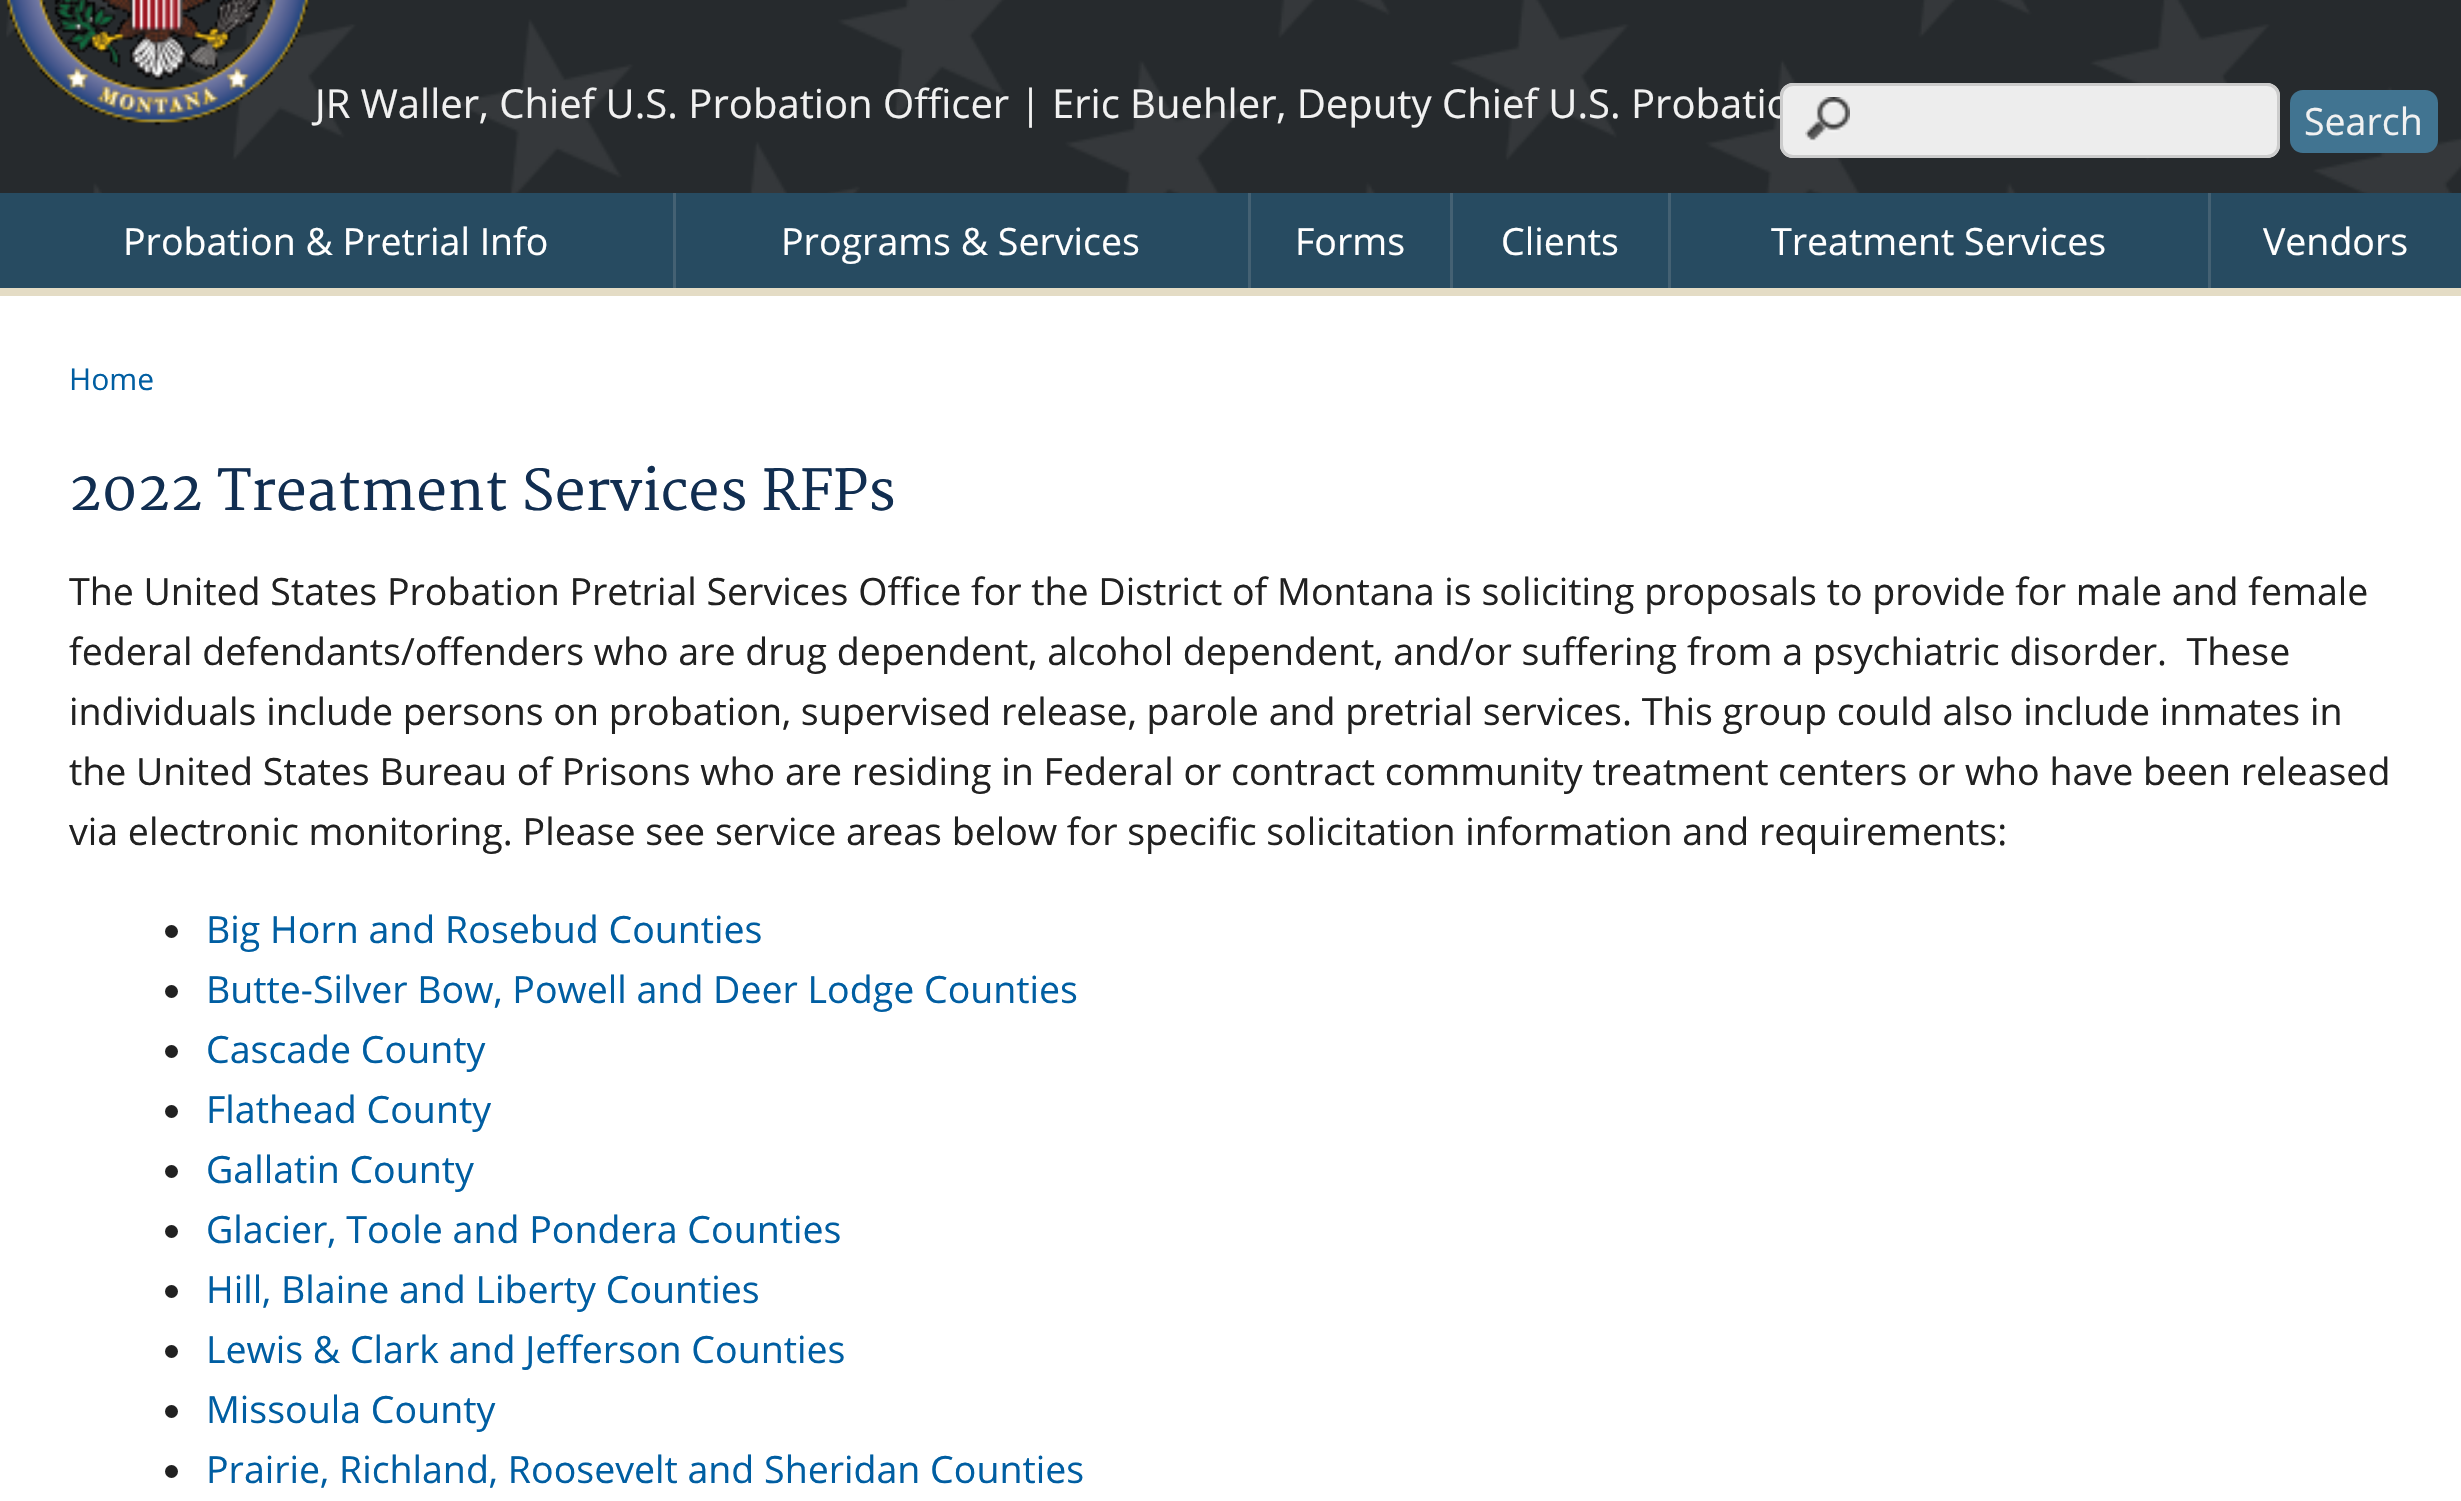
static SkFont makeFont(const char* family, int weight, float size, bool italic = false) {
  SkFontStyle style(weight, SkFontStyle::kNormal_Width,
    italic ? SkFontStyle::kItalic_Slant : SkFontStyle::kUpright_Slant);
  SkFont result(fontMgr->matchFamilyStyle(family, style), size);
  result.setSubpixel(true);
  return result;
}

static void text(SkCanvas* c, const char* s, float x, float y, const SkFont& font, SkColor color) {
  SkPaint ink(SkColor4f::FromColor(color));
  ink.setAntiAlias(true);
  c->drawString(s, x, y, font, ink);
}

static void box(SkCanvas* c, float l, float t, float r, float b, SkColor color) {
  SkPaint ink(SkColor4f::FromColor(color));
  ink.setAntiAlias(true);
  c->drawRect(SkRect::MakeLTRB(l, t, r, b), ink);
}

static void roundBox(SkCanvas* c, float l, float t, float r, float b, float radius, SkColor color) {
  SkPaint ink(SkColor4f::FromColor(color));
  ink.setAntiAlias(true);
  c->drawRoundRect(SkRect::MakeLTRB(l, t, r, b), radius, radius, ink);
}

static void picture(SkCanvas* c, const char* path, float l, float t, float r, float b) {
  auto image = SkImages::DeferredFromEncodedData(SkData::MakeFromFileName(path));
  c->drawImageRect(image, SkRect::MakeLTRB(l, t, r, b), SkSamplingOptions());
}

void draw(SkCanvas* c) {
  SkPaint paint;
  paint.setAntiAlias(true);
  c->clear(0xffffffff);
  box(c, 0, 0, 2461, 193, 0xff262a2d);
  picture(c, "img_01.png", 6, 0, 2461, 193);
  picture(c, "img_02.png", 6, 0, 310, 126);
  SkFont face1 = makeFont("Open Sans", 400, 40);
  text(c, "JR Waller, Chief U.S. Probation Officer | Eric Buehler, Deputy Chief U.S. Probatio", 315, 118, face1, 0xfff1f1f1);
  roundBox(c, 1780, 83, 2280, 158, 13, 0xffededed);
  picture(c, "img_03.png", 1805, 97, 1850, 142);
  paint.setStyle(SkPaint::kStroke_Style);
  paint.setStrokeWidth(3);
  paint.setColor(0xffcccccc);
  c->drawRoundRect(SkRect::MakeLTRB(1781.5f, 84.5f, 2278.5f, 156.5f), 11.5f, 11.5f, paint);
  roundBox(c, 2290, 90, 2438, 153, 13, 0xff417491);
  SkFont face2 = makeFont("Open Sans", 400, 37.5f);
  text(c, "Search", 2304, 135, face2, 0xfff1f1f1);
  box(c, 0, 193, 2461, 288, 0xff274b61);
  box(c, 0, 288, 2461, 296, 0xffe4dcc5);
  box(c, 673, 193, 676, 288, 0xff446173);
  text(c, "Probation & Pretrial Info", 123, 255, face2, 0xffffffff);
  box(c, 1248, 193, 1251, 288, 0xff446173);
  text(c, "Programs & Services", 781, 255, face2, 0xffffffff);
  box(c, 1450, 193, 1453, 288, 0xff446173);
  text(c, "Forms", 1295, 255, face2, 0xffffffff);
  box(c, 1668, 193, 1671, 288, 0xff446173);
  text(c, "Clients", 1501, 255, face2, 0xffffffff);
  box(c, 2208, 193, 2211, 288, 0xff446173);
  text(c, "Treatment Services", 1771, 255, face2, 0xffffffff);
  text(c, "Vendors", 2263, 255, face2, 0xffffffff);
  SkFont face3 = makeFont("Open Sans", 400, 30);
  text(c, "Home", 69, 390, face3, 0xff005ea2);
  SkFont face4 = makeFont("Merriweather", 400, 55);
  text(c, "2022 Treatment Services RFPs", 69, 510, face4, 0xff112e51);
  text(c, "The United States Probation Pretrial Services Office for the District of Montana is soliciting proposals to provide for male and female", 69, 605, face2, 0xff212121);
  text(c, "federal defendants/offenders who are drug dependent, alcohol dependent, and/or suffering from a psychiatric disorder.  These", 69, 665, face2, 0xff212121);
  text(c, "individuals include persons on probation, supervised release, parole and pretrial services. This group could also include inmates in", 69, 725, face2, 0xff212121);
  text(c, "the United States Bureau of Prisons who are residing in Federal or contract community treatment centers or who have been released", 69, 785, face2, 0xff212121);
  text(c, "via electronic monitoring. Please see service areas below for specific solicitation information and requirements:", 69, 845, face2, 0xff212121);
  paint.setStyle(SkPaint::kFill_Style);
  paint.setColor(0xff212121);
  c->drawCircle(171.5f, 931.5f, 6.5f, paint);
  text(c, "Big Horn and Rosebud Counties", 206, 943, face2, 0xff005ea2);
  c->drawCircle(171.5f, 991.5f, 6.5f, paint);
  text(c, "Butte-Silver Bow, Powell and Deer Lodge Counties", 206, 1003, face2, 0xff005ea2);
  c->drawCircle(171.5f, 1051.5f, 6.5f, paint);
  text(c, "Cascade County", 206, 1063, face2, 0xff005ea2);
  c->drawCircle(171.5f, 1111.5f, 6.5f, paint);
  text(c, "Flathead County", 206, 1123, face2, 0xff005ea2);
  c->drawCircle(171.5f, 1171.5f, 6.5f, paint);
  text(c, "Gallatin County", 206, 1183, face2, 0xff005ea2);
  c->drawCircle(171.5f, 1231.5f, 6.5f, paint);
  text(c, "Glacier, Toole and Pondera Counties", 206, 1243, face2, 0xff005ea2);
  c->drawCircle(171.5f, 1291.5f, 6.5f, paint);
  text(c, "Hill, Blaine and Liberty Counties", 206, 1303, face2, 0xff005ea2);
  c->drawCircle(171.5f, 1351.5f, 6.5f, paint);
  text(c, "Lewis & Clark and Jefferson Counties", 206, 1363, face2, 0xff005ea2);
  c->drawCircle(171.5f, 1411.5f, 6.5f, paint);
  text(c, "Missoula County", 206, 1423, face2, 0xff005ea2);
  c->drawCircle(171.5f, 1471.5f, 6.5f, paint);
  text(c, "Prairie, Richland, Roosevelt and Sheridan Counties", 206, 1483, face2, 0xff005ea2);
}
